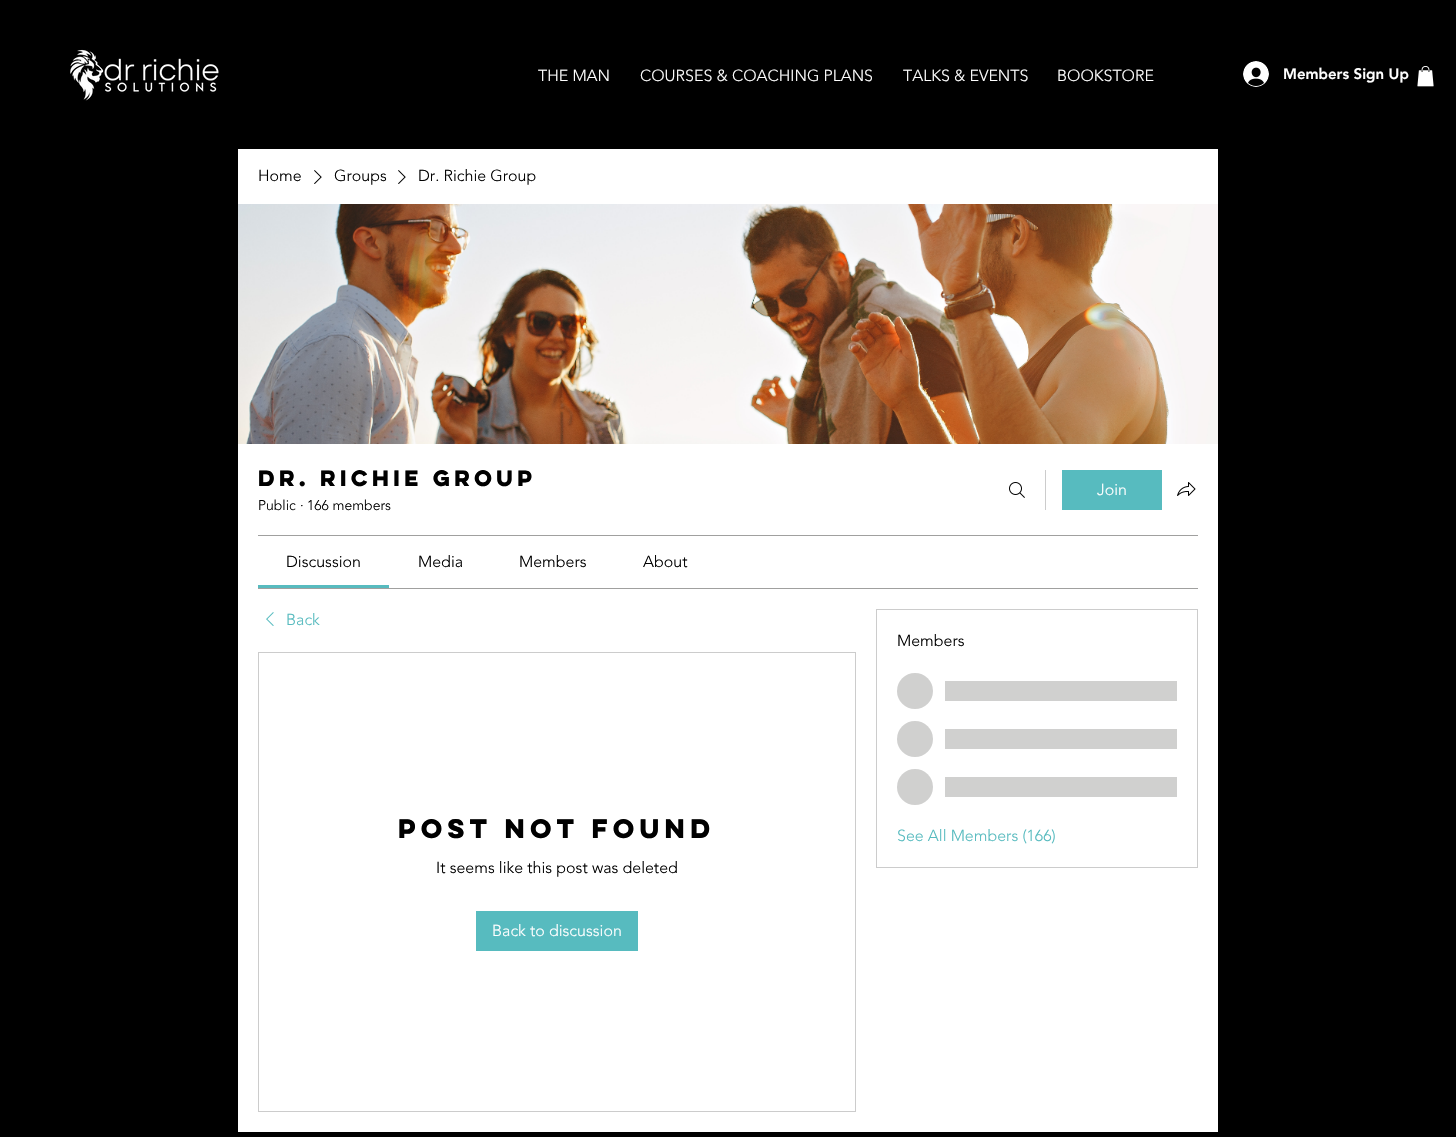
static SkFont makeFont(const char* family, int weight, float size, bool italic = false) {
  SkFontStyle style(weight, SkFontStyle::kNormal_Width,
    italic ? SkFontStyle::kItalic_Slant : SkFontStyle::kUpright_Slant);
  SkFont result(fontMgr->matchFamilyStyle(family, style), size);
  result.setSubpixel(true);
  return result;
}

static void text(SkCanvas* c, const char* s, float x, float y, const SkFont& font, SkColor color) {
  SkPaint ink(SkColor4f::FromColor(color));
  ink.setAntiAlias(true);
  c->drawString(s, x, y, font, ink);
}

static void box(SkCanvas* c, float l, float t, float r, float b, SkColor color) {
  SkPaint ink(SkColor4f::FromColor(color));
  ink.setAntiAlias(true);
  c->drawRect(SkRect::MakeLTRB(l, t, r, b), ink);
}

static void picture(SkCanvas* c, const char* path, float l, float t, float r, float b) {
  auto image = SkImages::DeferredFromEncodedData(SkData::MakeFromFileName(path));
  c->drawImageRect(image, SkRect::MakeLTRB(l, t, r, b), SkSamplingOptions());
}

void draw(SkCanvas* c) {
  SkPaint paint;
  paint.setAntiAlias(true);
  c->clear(0xff000000);
  picture(c, "img_01.png", 70, 49, 219, 101);
  SkFont face1 = makeFont("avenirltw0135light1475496", 300, 16);
  text(c, "THE MAN", 538, 81, face1, 0xffffffff);
  text(c, "COURSES & COACHING PLANS", 640, 81, face1, 0xffffffff);
  text(c, "TALKS & EVENTS", 903, 81, face1, 0xffffffff);
  text(c, "BOOKSTORE", 1057, 81, face1, 0xffffffff);
  picture(c, "img_02.png", 1243, 61, 1269, 87);
  SkFont face2 = makeFont("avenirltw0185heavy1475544", 900, 15);
  text(c, "Members Sign Up", 1283, 79, face2, 0xffffffff);
  picture(c, "img_03.png", 1417, 66, 1434, 87);
  box(c, 238, 149, 1218, 1132, 0xffffffff);
  text(c, "Home", 258, 181, face1, 0xff000000);
  picture(c, "img_04.png", 314, 170, 322, 184);
  text(c, "Groups", 334, 181, face1, 0xff000000);
  picture(c, "img_04.png", 398, 170, 406, 184);
  text(c, "Dr. Richie Group", 418, 181, face1, 0xff000000);
  picture(c, "img_05.png", 238, 204, 1218, 444);
  SkFont face3 = makeFont("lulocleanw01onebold", 700, 20);
  text(c, "Dr. Richie Group", 258, 486, face3, 0xff000000);
  SkFont face4 = makeFont("avenirltw0135light1475496", 300, 14);
  text(c, "Public", 258, 510, face4, 0xff000000);
  text(c, "·", 300, 510, face4, 0xff000000);
  text(c, "166 members", 307, 510, face4, 0xff000000);
  picture(c, "img_06.png", 1009, 482, 1025, 498);
  box(c, 1045, 470, 1046, 510, 0xffcccccc);
  box(c, 1062, 470, 1162, 510, 0xff57bbbf);
  text(c, "Join", 1097, 495, face1, 0xffffffff);
  picture(c, "img_07.png", 1177, 482, 1196, 496);
  box(c, 258, 535, 1198, 536, 0xffa0a09f);
  box(c, 258, 588, 1198, 589, 0xffa0a09f);
  box(c, 258, 585, 389, 588, 0xff57bbbf);
  text(c, "Discussion", 286, 567, face1, 0xff000000);
  text(c, "Media", 418, 567, face1, 0xff000000);
  text(c, "Members", 519, 567, face1, 0xff000000);
  text(c, "About", 643, 567, face1, 0xff000000);
  picture(c, "img_08.png", 266, 612, 274, 626);
  text(c, "Back", 286, 625, face1, 0xff57bbbf);
  paint.setStyle(SkPaint::kStroke_Style);
  paint.setStrokeWidth(1);
  paint.setColor(0xffcccccc);
  c->drawRect(SkRect::MakeLTRB(258.5f, 652.5f, 855.5f, 1111.5f), paint);
  SkFont face5 = makeFont("lulocleanw01onebold", 700, 24);
  text(c, "Post Not Found", 398, 838, face5, 0xff000000);
  text(c, "It seems like this post was deleted", 436, 873, face1, 0xff000000);
  box(c, 476, 911, 638, 951, 0xff57bbbf);
  text(c, "Back to discussion", 492, 936, face1, 0xffffffff);
  c->drawRect(SkRect::MakeLTRB(876.5f, 609.5f, 1197.5f, 867.5f), paint);
  text(c, "Members", 897, 646, face1, 0xff000000);
  paint.setStyle(SkPaint::kFill_Style);
  paint.setColor(0xffd0d0cf);
  c->drawCircle(915, 691, 18, paint);
  box(c, 945, 681, 1177, 701, 0xffd0d0cf);
  c->drawCircle(915, 739, 18, paint);
  box(c, 945, 729, 1177, 749, 0xffd0d0cf);
  c->drawCircle(915, 787, 18, paint);
  box(c, 945, 777, 1177, 797, 0xffd0d0cf);
  text(c, "See All Members (166)", 897, 841, face1, 0xff57bbbf);
}
